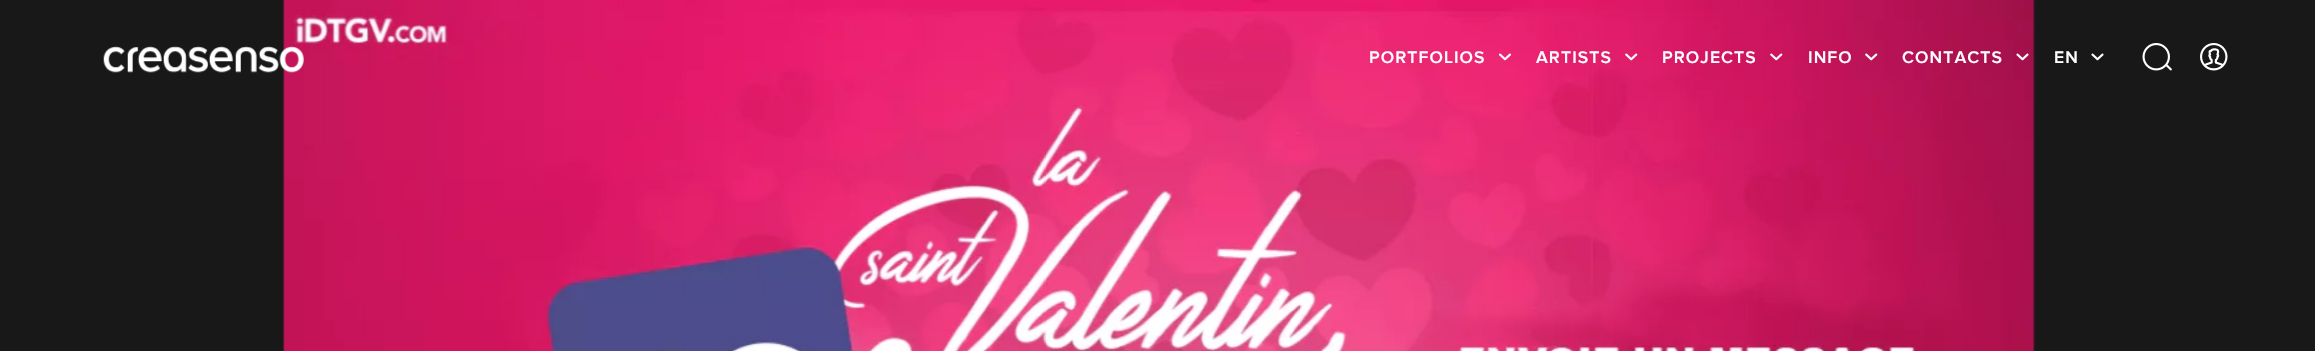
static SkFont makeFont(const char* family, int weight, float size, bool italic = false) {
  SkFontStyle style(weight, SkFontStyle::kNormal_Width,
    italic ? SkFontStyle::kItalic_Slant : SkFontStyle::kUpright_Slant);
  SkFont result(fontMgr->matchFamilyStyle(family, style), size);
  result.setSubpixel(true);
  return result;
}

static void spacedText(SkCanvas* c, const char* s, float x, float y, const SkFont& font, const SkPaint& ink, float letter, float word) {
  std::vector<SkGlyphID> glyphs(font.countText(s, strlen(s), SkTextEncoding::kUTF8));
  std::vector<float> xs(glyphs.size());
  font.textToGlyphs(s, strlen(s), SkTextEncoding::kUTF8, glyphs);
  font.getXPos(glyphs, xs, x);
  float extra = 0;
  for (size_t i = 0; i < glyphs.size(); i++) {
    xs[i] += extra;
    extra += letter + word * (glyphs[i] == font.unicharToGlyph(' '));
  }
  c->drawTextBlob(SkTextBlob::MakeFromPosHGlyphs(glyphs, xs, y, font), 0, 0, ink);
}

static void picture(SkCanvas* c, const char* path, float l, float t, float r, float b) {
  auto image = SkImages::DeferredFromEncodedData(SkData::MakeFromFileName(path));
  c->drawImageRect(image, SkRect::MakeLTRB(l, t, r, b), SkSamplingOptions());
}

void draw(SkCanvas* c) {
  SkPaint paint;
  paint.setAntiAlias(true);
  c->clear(0xff181818);
  picture(c, "img_01.png", 283, 0, 2035, 351);
  picture(c, "img_02.png", 103, 46, 304, 73);
  SkFont face1 = makeFont("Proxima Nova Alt", 600, 17.5f);
  paint.setColor(0xffffffff);
  spacedText(c, "PORTFOLIOS", 1369, 63, face1, paint, 1.1f, 0);
  picture(c, "img_03.png", 1498, 53, 1511, 61);
  spacedText(c, "ARTISTS", 1536, 63, face1, paint, 1.1f, 0);
  picture(c, "img_04.png", 1625, 53, 1638, 61);
  spacedText(c, "PROJECTS", 1662, 63, face1, paint, 1.1f, 0);
  picture(c, "img_05.png", 1770, 53, 1783, 61);
  spacedText(c, "INFO", 1808, 63, face1, paint, 1.1f, 0);
  picture(c, "img_06.png", 1865, 53, 1878, 61);
  spacedText(c, "CONTACTS", 1902, 63, face1, paint, 1.1f, 0);
  picture(c, "img_07.png", 2016, 53, 2029, 61);
  spacedText(c, "EN", 2054, 63, face1, paint, 1.1f, 0);
  picture(c, "img_08.png", 2091, 53, 2104, 61);
  picture(c, "img_09.png", 2142, 43, 2172, 71);
  picture(c, "img_10.png", 2200, 43, 2228, 71);
}
